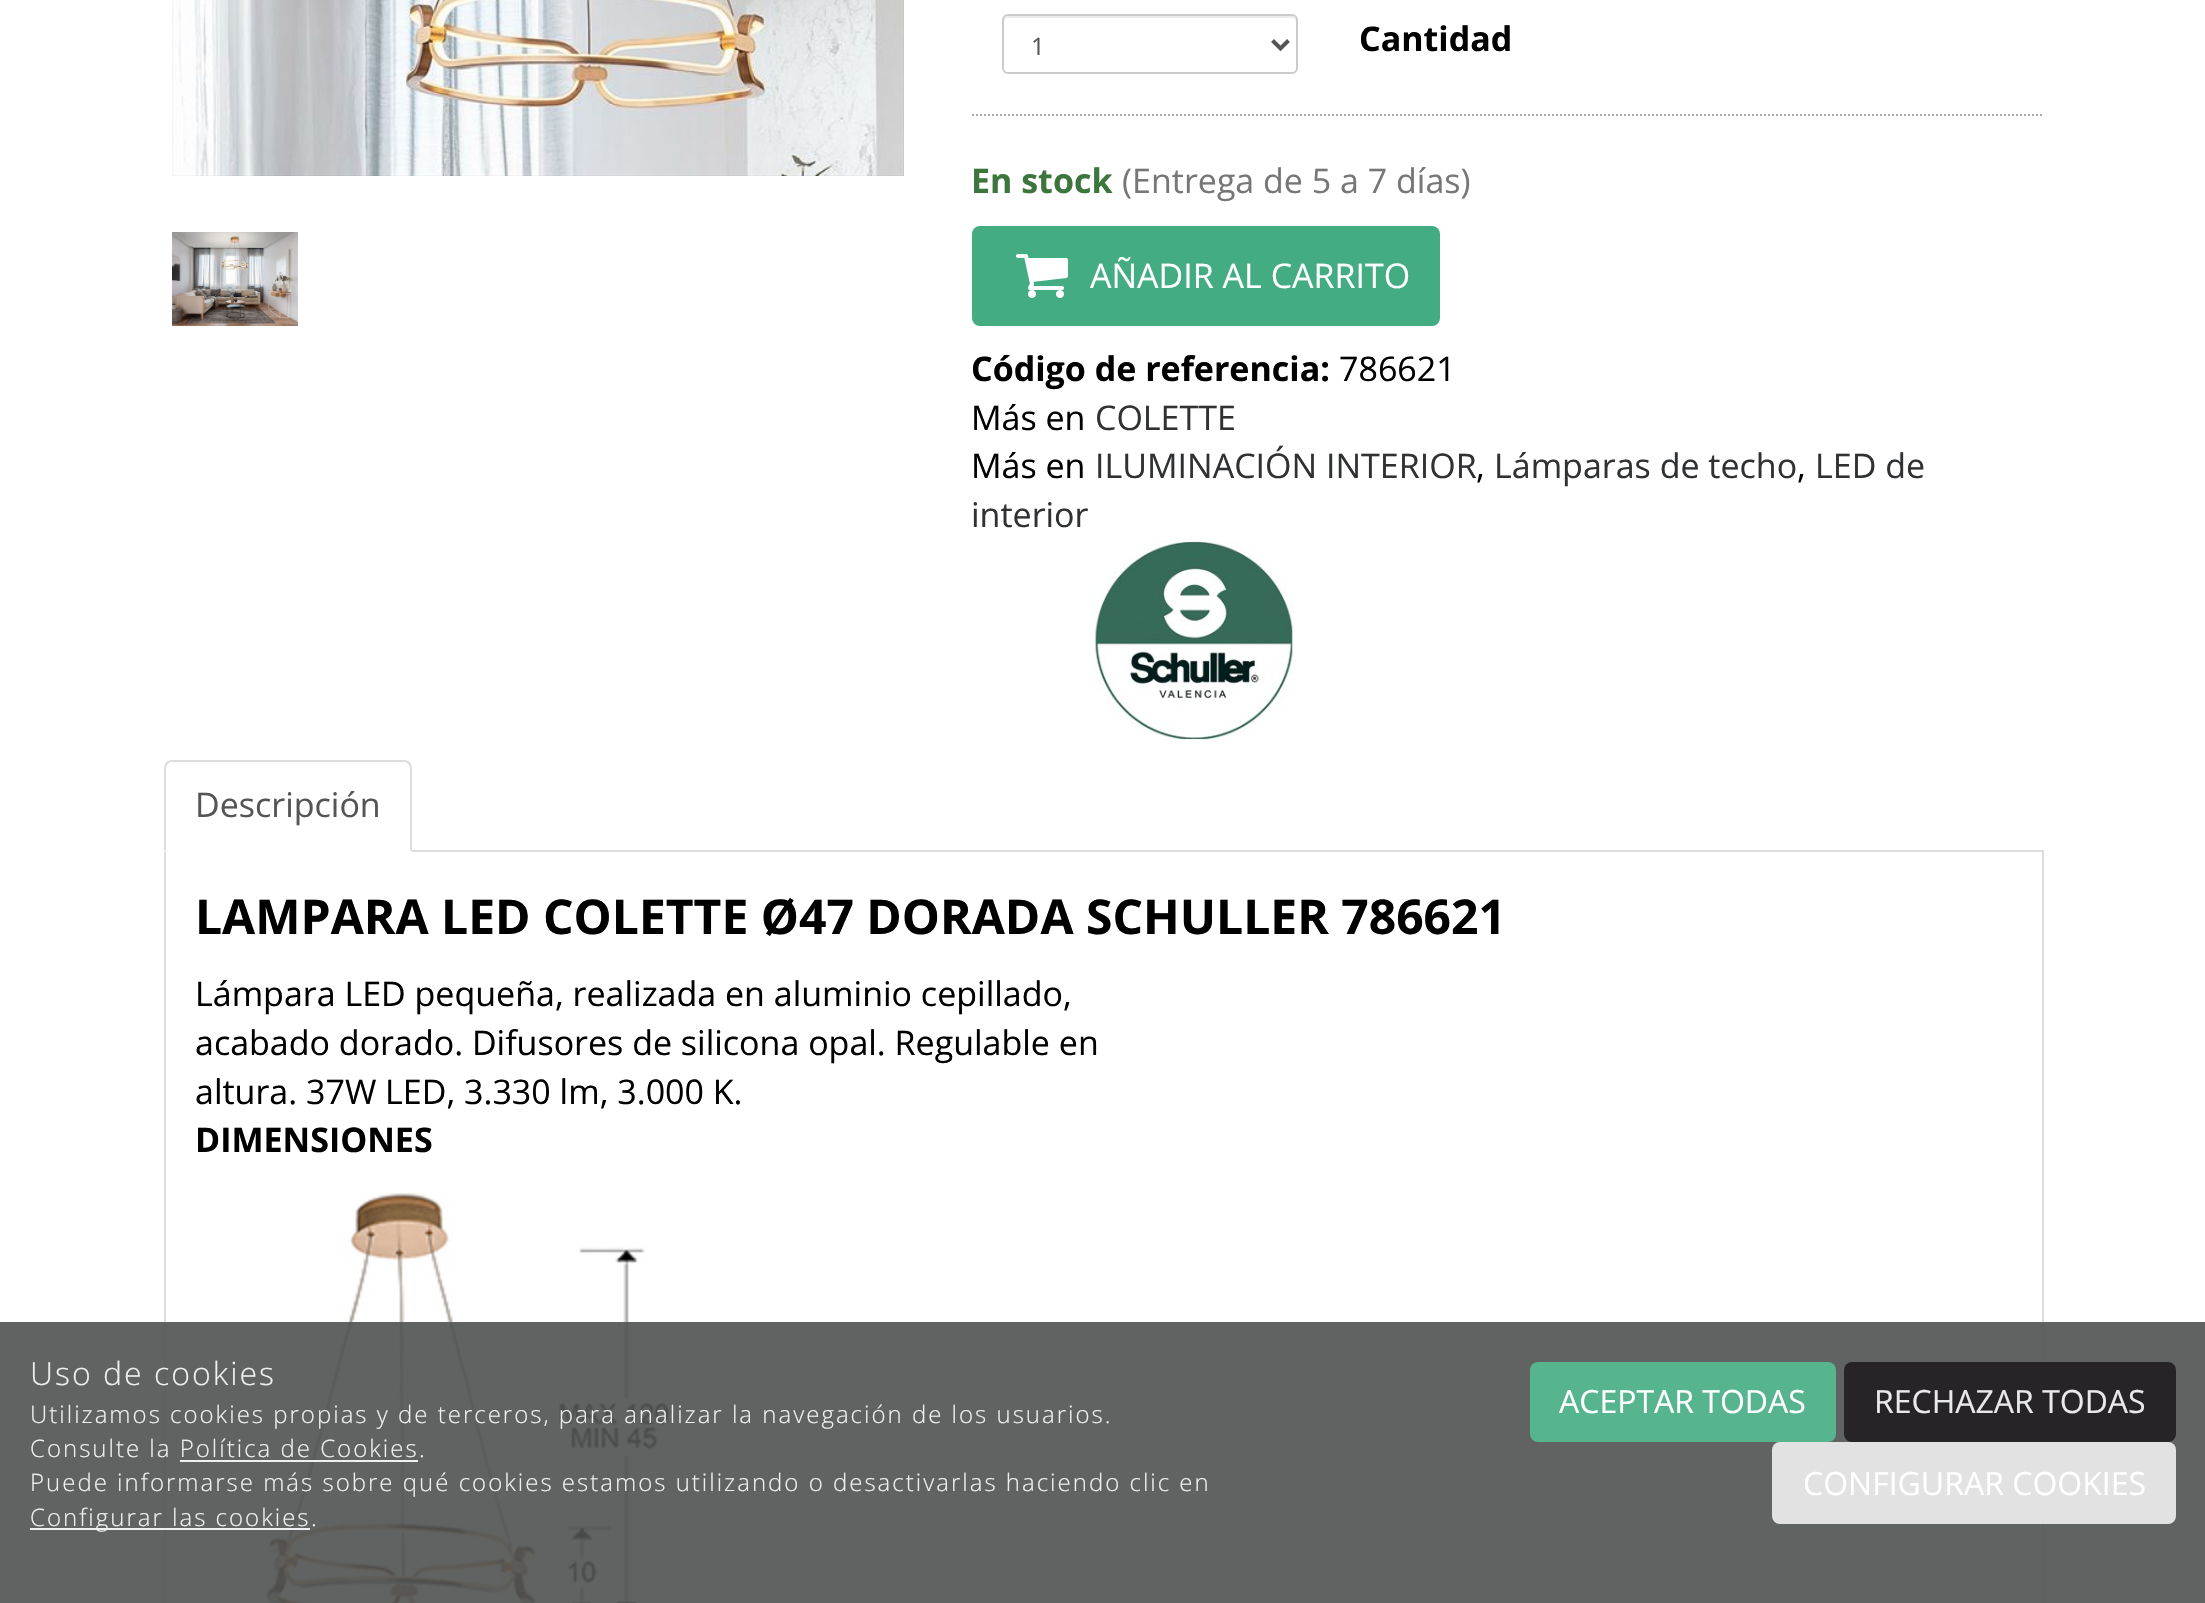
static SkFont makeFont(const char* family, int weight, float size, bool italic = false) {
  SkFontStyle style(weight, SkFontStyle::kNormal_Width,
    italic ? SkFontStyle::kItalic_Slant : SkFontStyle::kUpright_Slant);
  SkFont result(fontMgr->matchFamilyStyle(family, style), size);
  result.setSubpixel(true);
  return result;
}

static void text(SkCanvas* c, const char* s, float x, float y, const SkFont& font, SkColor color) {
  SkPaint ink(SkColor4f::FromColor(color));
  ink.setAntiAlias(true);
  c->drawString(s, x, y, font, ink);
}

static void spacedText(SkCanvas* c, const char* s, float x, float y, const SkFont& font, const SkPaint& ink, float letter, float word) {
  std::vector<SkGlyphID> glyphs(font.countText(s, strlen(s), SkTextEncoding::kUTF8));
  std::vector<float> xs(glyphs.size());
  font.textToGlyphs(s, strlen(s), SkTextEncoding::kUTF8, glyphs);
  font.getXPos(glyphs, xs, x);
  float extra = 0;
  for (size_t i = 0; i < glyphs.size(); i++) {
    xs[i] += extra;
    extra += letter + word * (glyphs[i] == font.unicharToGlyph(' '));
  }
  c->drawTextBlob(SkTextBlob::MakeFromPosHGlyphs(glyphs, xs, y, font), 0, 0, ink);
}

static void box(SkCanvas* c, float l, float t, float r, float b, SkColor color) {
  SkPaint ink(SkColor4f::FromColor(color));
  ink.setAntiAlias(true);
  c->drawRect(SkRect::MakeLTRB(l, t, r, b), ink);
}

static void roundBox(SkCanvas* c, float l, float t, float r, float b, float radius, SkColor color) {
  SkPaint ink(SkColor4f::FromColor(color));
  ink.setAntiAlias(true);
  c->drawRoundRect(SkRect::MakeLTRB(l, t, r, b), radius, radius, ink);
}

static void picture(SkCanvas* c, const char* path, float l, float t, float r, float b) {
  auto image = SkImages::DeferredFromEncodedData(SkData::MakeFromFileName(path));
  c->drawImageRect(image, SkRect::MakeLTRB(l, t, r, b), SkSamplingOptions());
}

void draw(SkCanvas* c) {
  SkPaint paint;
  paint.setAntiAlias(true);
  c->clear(0xffffffff);
  picture(c, "img_01.png", 172, 0, 904, 176);
  picture(c, "img_02.png", 172, 232, 298, 326);
  paint.setColor(0xffececec);
  c->drawPath(SkPathBuilder().moveTo(1008, 18).lineTo(1292, 18).cubicTo(1294, 18, 1296, 20, 1296, 22).lineTo(1296, 20).cubicTo(1296, 18, 1294, 16, 1292, 16).lineTo(1008, 16).cubicTo(1006, 16, 1004, 18, 1004, 20).lineTo(1004, 22).cubicTo(1004, 20, 1006, 18, 1008, 18).close().detach(), paint);
  paint.setStyle(SkPaint::kStroke_Style);
  paint.setStrokeWidth(2);
  paint.setColor(0xffcccccc);
  c->drawRoundRect(SkRect::MakeLTRB(1003, 15, 1297, 73), 5, 5, paint);
  paint.setStrokeWidth(4);
  paint.setColor(0xff555555);
  c->drawPath(SkPathBuilder().moveTo(1272.5f, 40.5f).lineTo(1280.5f, 48.5f).lineTo(1288.5f, 40.5f).detach(), paint);
  SkFont face1 = makeFont("Open Sans", 400, 24);
  text(c, "1", 1031, 55, face1, 0xff555555);
  SkFont face2 = makeFont("Open Sans", 700, 34);
  text(c, "Cantidad", 1359, 51, face2, 0xff000000);
  paint.setStrokeWidth(2);
  paint.setColor(0xffacacac);
  paint.setPathEffect(SkDashPathEffect::Make({{2, 2}}, 0));
  c->drawPath(SkPathBuilder().moveTo(972, 115).lineTo(2042, 115).detach(), paint);
  paint.setPathEffect(nullptr);
  text(c, "En stock", 971, 193, face2, 0xff3c763d);
  SkFont face3 = makeFont("Open Sans", 400, 34);
  text(c, "(Entrega de 5 a 7 días)", 1122, 193, face3, 0xff777777);
  roundBox(c, 972, 226, 1440, 326, 8, 0xff43ac82);
  picture(c, "img_03.png", 1016, 254, 1068, 298);
  text(c, "AÑADIR AL CARRITO", 1090, 288, face3, 0xffffffff);
  text(c, "Código de referencia:", 971, 381, face2, 0xff000000);
  text(c, "786621", 1339, 381, face3, 0xff000000);
  text(c, "Más en", 971, 430, face3, 0xff000000);
  text(c, "COLETTE", 1095, 430, face3, 0xff303133);
  text(c, "Más en", 971, 478, face3, 0xff000000);
  text(c, "ILUMINACIÓN INTERIOR", 1095, 478, face3, 0xff303133);
  text(c, ",", 1476, 478, face3, 0xff000000);
  text(c, "Lámparas de techo", 1494, 478, face3, 0xff303133);
  text(c, ",", 1797, 478, face3, 0xff000000);
  text(c, "LED de", 1815, 478, face3, 0xff303133);
  text(c, "interior", 971, 527, face3, 0xff303133);
  picture(c, "img_04.png", 1092, 540, 1294, 740);
  box(c, 412, 850, 2044, 852, 0xffdddddd);
  paint.setStyle(SkPaint::kFill_Style);
  paint.setColor(0xffdddddd);
  c->drawPath(SkPathBuilder().moveTo(172, 760).cubicTo(170, 760, 168, 761, 166, 762).lineTo(168, 764).cubicTo(169, 763, 170, 762, 172, 762).lineTo(404, 762).cubicTo(406, 762, 407, 763, 408, 764).lineTo(410, 762).cubicTo(408, 761, 406, 760, 404, 760).close().detach(), paint);
  c->drawPath(SkPathBuilder().moveTo(412, 852).lineTo(412, 768).cubicTo(412, 766, 411, 764, 410, 762).lineTo(408, 764).lineTo(410, 767).lineTo(410, 850).close().detach(), paint);
  c->drawPath(SkPathBuilder().moveTo(164, 852).lineTo(166, 850).lineTo(166, 767).lineTo(168, 764).lineTo(166, 762).cubicTo(165, 764, 164, 766, 164, 768).close().detach(), paint);
  text(c, "Descripción", 195, 817, face3, 0xff555555);
  c->drawPath(SkPathBuilder(SkPathFillType::kEvenOdd).moveTo(164, 852).lineTo(2044, 852).lineTo(2044, 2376).cubicTo(2044, 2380, 2040, 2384, 2036, 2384).lineTo(172, 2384).cubicTo(168, 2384, 164, 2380, 164, 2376).close().moveTo(166, 852).lineTo(2042, 852).lineTo(2042, 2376).cubicTo(2042, 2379, 2039, 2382, 2036, 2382).lineTo(172, 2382).cubicTo(169, 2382, 166, 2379, 166, 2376).close().detach(), paint);
  SkFont face4 = makeFont("Open Sans", 700, 48);
  text(c, "LAMPARA LED COLETTE Ø47 DORADA SCHULLER 786621", 195, 934, face4, 0xff000000);
  text(c, "Lámpara LED pequeña, realizada en aluminio cepillado,", 195, 1006, face3, 0xff000000);
  text(c, "acabado dorado. Difusores de silicona opal. Regulable en", 195, 1055, face3, 0xff000000);
  text(c, "altura. 37W LED, 3.330 lm, 3.000 K.", 195, 1104, face3, 0xff000000);
  text(c, "DIMENSIONES", 195, 1152, face2, 0xff000000);
  picture(c, "img_05.png", 265, 1191, 671, 1603);
  box(c, 0, 1322, 2205, 1603, 0xe6505252);
  SkFont face5 = makeFont("Open Sans", 300, 32);
  paint.setColor(0xffefefef);
  spacedText(c, "Uso de cookies", 30, 1385, face5, paint, 2, 0);
  SkFont face6 = makeFont("Open Sans", 300, 24);
  spacedText(c, "Utilizamos cookies propias y de terceros, para analizar la navegación de los usuarios.", 30, 1423, face6, paint, 2, 0);
  spacedText(c, "Consulte la Política de Cookies", 30, 1457, face6, paint, 2, 0);
  paint.setColor(0xffffffff);
  spacedText(c, ".", 419, 1457, face6, paint, 2, 0);
  box(c, 180, 1460, 418, 1462, 0xe6ffffff);
  paint.setColor(0xffefefef);
  spacedText(c, "Puede informarse más sobre qué cookies estamos utilizando o desactivarlas haciendo clic en", 30, 1491, face6, paint, 2, 0);
  box(c, 30, 1528, 310, 1530, 0xe6ffffff);
  spacedText(c, "Configurar las cookies", 30, 1526, face6, paint, 2, 0);
  paint.setColor(0xffffffff);
  spacedText(c, ".", 311, 1526, face6, paint, 2, 0);
  roundBox(c, 1530, 1362, 1836, 1442, 8, 0xff56b48f);
  SkFont face7 = makeFont("Open Sans", 400, 32);
  text(c, "ACEPTAR TODAS", 1559, 1413, face7, 0xffffffff);
  roundBox(c, 1844, 1362, 2176, 1442, 8, 0xe6201d21);
  text(c, "RECHAZAR TODAS", 1874, 1413, face7, 0xffe9e9e9);
  roundBox(c, 1772, 1442, 2176, 1524, 8, 0xe6efefef);
  text(c, "CONFIGURAR COOKIES", 1803, 1495, face7, 0xffffffff);
}
